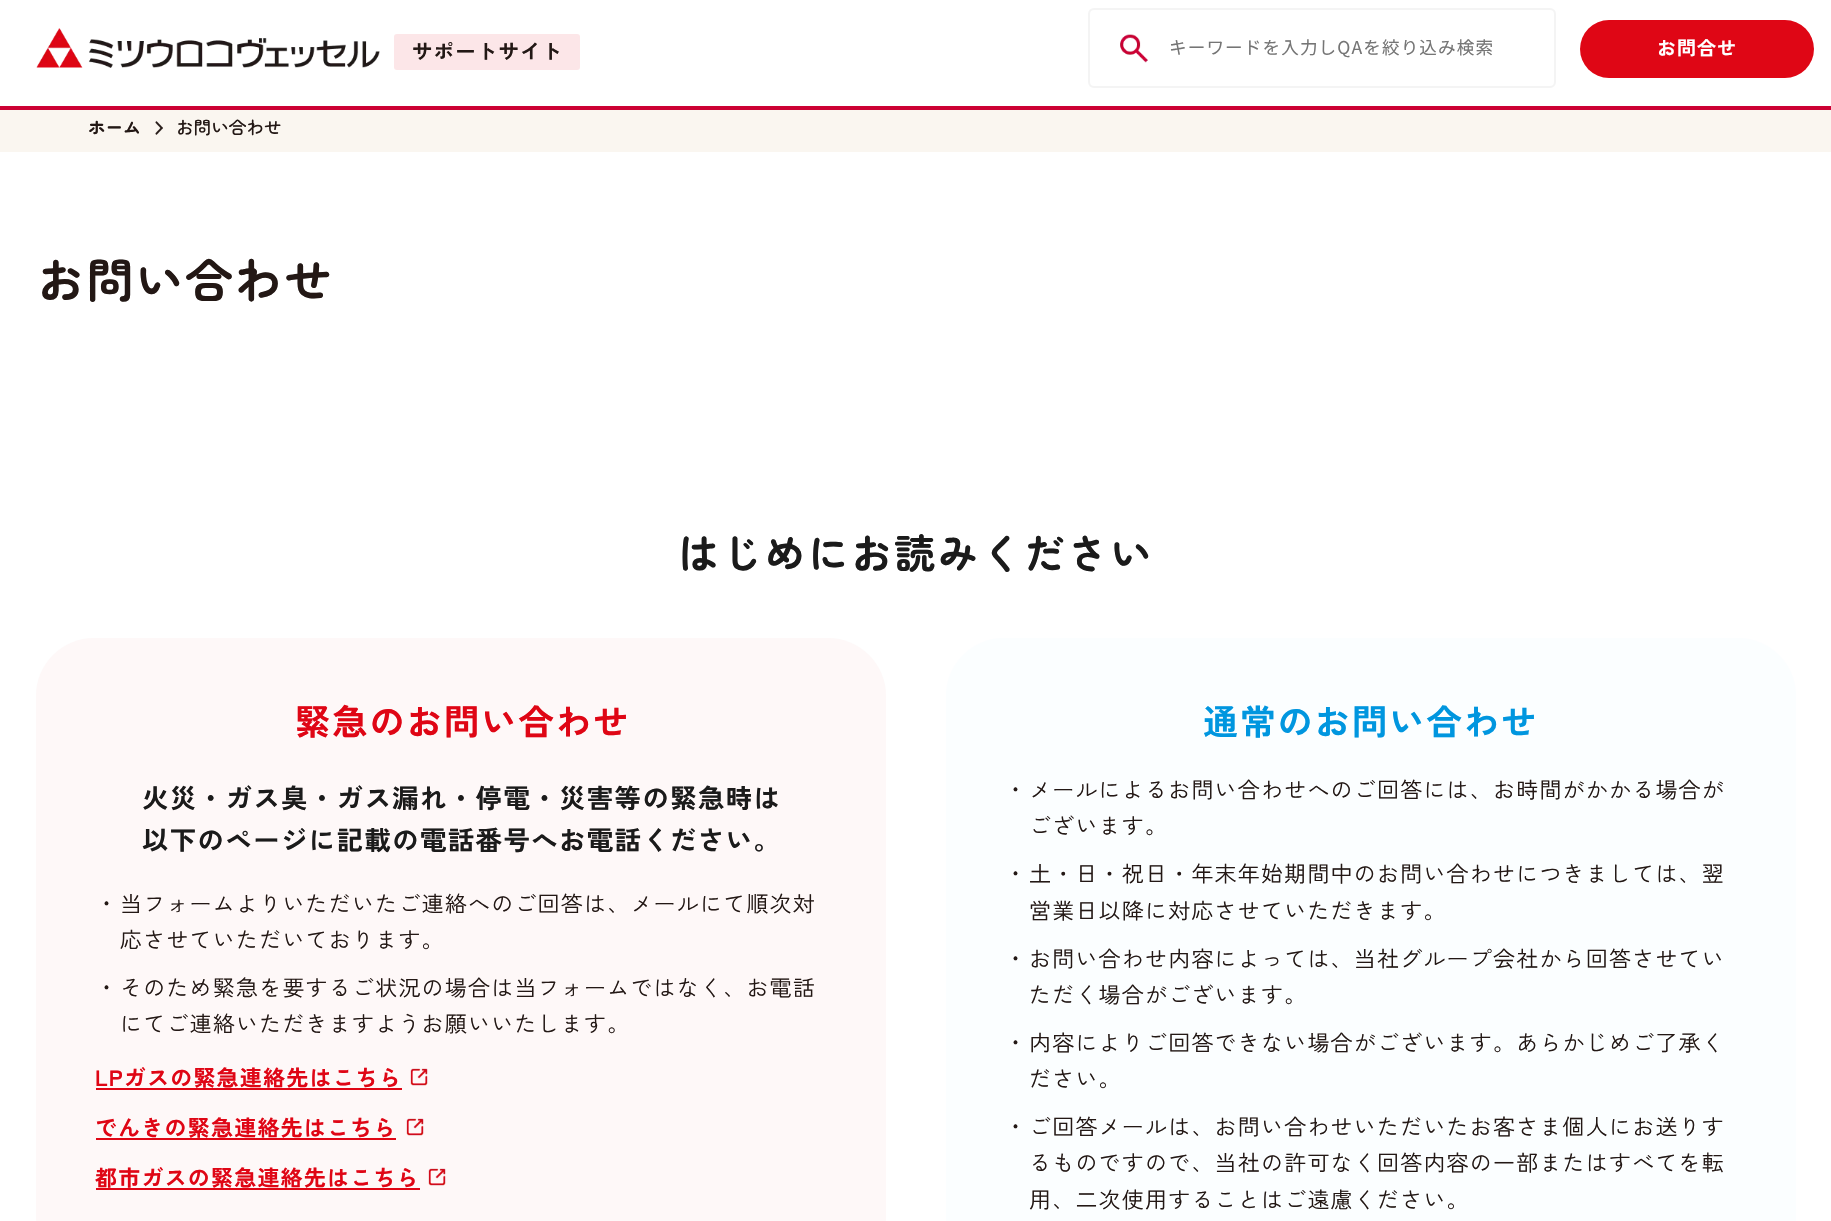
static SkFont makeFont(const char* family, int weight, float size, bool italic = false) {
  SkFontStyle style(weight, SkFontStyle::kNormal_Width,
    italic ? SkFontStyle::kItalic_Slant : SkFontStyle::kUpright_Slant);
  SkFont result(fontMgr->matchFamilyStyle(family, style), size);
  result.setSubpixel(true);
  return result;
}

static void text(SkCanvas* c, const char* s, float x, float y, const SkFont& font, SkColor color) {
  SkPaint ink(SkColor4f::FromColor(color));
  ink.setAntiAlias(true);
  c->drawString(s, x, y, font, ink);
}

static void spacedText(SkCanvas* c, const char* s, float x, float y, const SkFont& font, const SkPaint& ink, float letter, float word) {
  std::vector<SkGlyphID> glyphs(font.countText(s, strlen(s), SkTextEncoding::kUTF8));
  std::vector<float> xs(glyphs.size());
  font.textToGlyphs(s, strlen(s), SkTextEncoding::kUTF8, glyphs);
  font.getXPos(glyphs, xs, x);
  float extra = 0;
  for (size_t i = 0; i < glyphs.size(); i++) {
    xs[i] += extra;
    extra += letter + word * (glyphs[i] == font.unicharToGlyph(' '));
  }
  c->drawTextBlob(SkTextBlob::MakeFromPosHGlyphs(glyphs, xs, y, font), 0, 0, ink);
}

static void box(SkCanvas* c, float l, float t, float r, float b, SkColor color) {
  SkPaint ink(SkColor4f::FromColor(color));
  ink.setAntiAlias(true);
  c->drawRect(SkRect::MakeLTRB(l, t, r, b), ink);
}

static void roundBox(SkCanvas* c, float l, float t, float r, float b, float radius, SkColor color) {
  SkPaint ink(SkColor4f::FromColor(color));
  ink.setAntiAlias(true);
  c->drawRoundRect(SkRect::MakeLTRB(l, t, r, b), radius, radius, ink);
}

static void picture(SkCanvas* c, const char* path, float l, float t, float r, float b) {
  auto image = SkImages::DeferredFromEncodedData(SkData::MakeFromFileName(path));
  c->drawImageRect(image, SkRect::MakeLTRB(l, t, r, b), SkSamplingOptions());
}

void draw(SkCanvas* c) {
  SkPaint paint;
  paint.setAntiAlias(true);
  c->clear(0xffffffff);
  box(c, 0, 106, 1831, 110, 0xffcc0133);
  picture(c, "img_01.png", 36, 28, 380, 68);
  roundBox(c, 394, 34, 580, 70, 3, 0xfffce6e8);
  SkFont face1 = makeFont("Zen Kaku Gothic New", 700, 20.5f);
  paint.setColor(0xff231815);
  spacedText(c, "サポートサイト", 412, 59, face1, paint, 1.1f, 0);
  paint.setStyle(SkPaint::kStroke_Style);
  paint.setStrokeWidth(2);
  paint.setColor(0xfff4f4f4);
  c->drawRoundRect(SkRect::MakeLTRB(1089, 9, 1555, 87), 5, 5, paint);
  picture(c, "img_02.png", 1120, 34, 1148, 63);
  SkFont face2 = makeFont("Noto Sans JP", 100, 17.6f);
  paint.setStyle(SkPaint::kFill_Style);
  paint.setColor(0xff757575);
  spacedText(c, "キーワードを入力しQAを絞り込み検索", 1169, 54, face2, paint, 1.1f, 0);
  roundBox(c, 1580, 20, 1814, 78, 29, 0xffdf0615);
  SkFont face3 = makeFont("Zen Kaku Gothic New", 700, 19);
  paint.setColor(0xffffffff);
  spacedText(c, "お問合せ", 1657, 55, face3, paint, 1, 0);
  box(c, 0, 110, 1831, 152, 0xfffaf6f0);
  SkFont face4 = makeFont("Zen Maru Gothic", 700, 17.6f);
  text(c, "ホーム", 88, 134, face4, 0xff231815);
  picture(c, "img_03.png", 155, 121, 163, 135);
  SkFont face5 = makeFont("Zen Maru Gothic", 500, 17.6f);
  text(c, "お問い合わせ", 176, 134, face5, 0xff231815);
  SkFont face6 = makeFont("Zen Maru Gothic", 700, 47);
  paint.setColor(0xff231815);
  spacedText(c, "お問い合わせ", 37, 298, face6, paint, 2.5f, 0);
  SkFont face7 = makeFont("Zen Maru Gothic", 700, 41);
  paint.setColor(0xff1b1b1b);
  spacedText(c, "はじめにお読みください", 678, 569, face7, paint, 2.25f, 0);
  roundBox(c, 36, 638, 886, 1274, 58, 0xfffef8f8);
  SkFont face8 = makeFont("Zen Kaku Gothic New", 700, 35.25f);
  paint.setColor(0xffdf0615);
  spacedText(c, "緊急のお問い合わせ", 295, 735, face8, paint, 2, 0);
  SkFont face9 = makeFont("Zen Kaku Gothic New", 700, 26.4f);
  paint.setColor(0xff1b1b1b);
  spacedText(c, "火災・ガス臭・ガス漏れ・停電・災害等の緊急時は", 142, 808, face9, paint, 1.4f, 0);
  spacedText(c, "以下のページに記載の電話番号へお電話ください。", 142, 850, face9, paint, 1.4f, 0);
  SkFont face10 = makeFont("Zen Kaku Gothic New", 400, 23);
  paint.setColor(0xff231815);
  spacedText(c, "・", 95, 912, face10, paint, 1.2f, 0);
  SkFont face11 = makeFont("Zen Kaku Gothic New", 400, 22);
  spacedText(c, "当フォームよりいただいたご連絡へのご回答は、メールにて順次対", 120, 912, face11, paint, 1.2f, 0);
  spacedText(c, "応させていただいております。", 120, 948, face11, paint, 1.2f, 0);
  spacedText(c, "・", 95, 996, face10, paint, 1.2f, 0);
  spacedText(c, "そのため緊急を要するご状況の場合は当フォームではなく、お電話", 120, 996, face11, paint, 1.2f, 0);
  spacedText(c, "にてご連絡いただきますようお願いいたします。", 120, 1032, face11, paint, 1.2f, 0);
  SkFont face12 = makeFont("Zen Kaku Gothic New", 700, 22);
  paint.setColor(0xffdf0615);
  spacedText(c, "LPガスの緊急連絡先はこちら", 95, 1086, face12, paint, 1.2f, 0);
  box(c, 96, 1088, 402, 1090, 0xffdf0615);
  picture(c, "img_04.png", 410, 1068, 428, 1086);
  spacedText(c, "でんきの緊急連絡先はこちら", 95, 1136, face12, paint, 1.2f, 0);
  box(c, 96, 1138, 396, 1140, 0xffdf0615);
  picture(c, "img_04.png", 406, 1118, 424, 1136);
  spacedText(c, "都市ガスの緊急連絡先はこちら", 95, 1186, face12, paint, 1.2f, 0);
  box(c, 96, 1188, 420, 1190, 0xffdf0615);
  picture(c, "img_04.png", 428, 1168, 446, 1186);
  roundBox(c, 946, 638, 1796, 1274, 58, 0xfffbfeff);
  paint.setColor(0xff0096df);
  spacedText(c, "通常のお問い合わせ", 1203, 735, face8, paint, 2, 0);
  paint.setColor(0xff231815);
  spacedText(c, "・", 1004, 798, face10, paint, 1.2f, 0);
  spacedText(c, "メールによるお問い合わせへのご回答には、お時間がかかる場合が", 1029, 798, face11, paint, 1.2f, 0);
  spacedText(c, "ございます。", 1029, 834, face11, paint, 1.2f, 0);
  spacedText(c, "・", 1004, 882, face10, paint, 1.2f, 0);
  spacedText(c, "土・日・祝日・年末年始期間中のお問い合わせにつきましては、翌", 1029, 882, face11, paint, 1.2f, 0);
  spacedText(c, "営業日以降に対応させていただきます。", 1029, 919, face11, paint, 1.2f, 0);
  spacedText(c, "・", 1004, 967, face10, paint, 1.2f, 0);
  spacedText(c, "お問い合わせ内容によっては、当社グループ会社から回答させてい", 1029, 967, face11, paint, 1.2f, 0);
  spacedText(c, "ただく場合がございます。", 1029, 1003, face11, paint, 1.2f, 0);
  spacedText(c, "・", 1004, 1051, face10, paint, 1.2f, 0);
  spacedText(c, "内容によりご回答できない場合がございます。あらかじめご了承く", 1029, 1051, face11, paint, 1.2f, 0);
  spacedText(c, "ださい。", 1029, 1087, face11, paint, 1.2f, 0);
  spacedText(c, "・", 1004, 1135, face10, paint, 1.2f, 0);
  spacedText(c, "ご回答メールは、お問い合わせいただいたお客さま個人にお送りす", 1029, 1135, face11, paint, 1.2f, 0);
  spacedText(c, "るものですので、当社の許可なく回答内容の一部またはすべてを転", 1029, 1171, face11, paint, 1.2f, 0);
  spacedText(c, "用、二次使用することはご遠慮ください。", 1029, 1208, face11, paint, 1.2f, 0);
}
